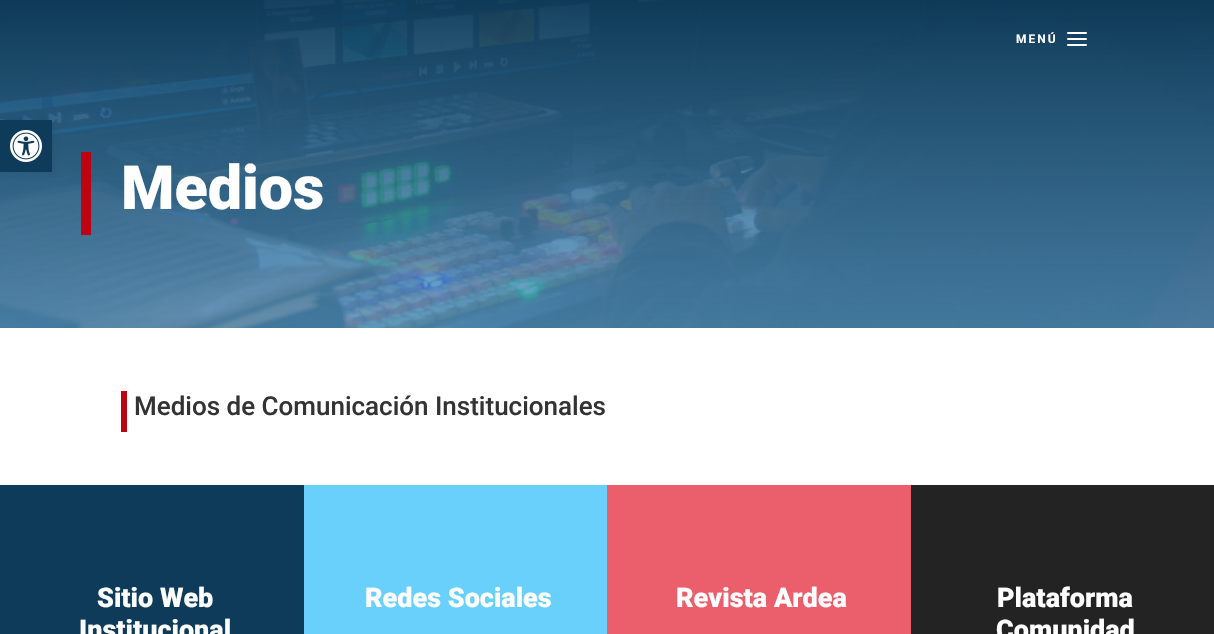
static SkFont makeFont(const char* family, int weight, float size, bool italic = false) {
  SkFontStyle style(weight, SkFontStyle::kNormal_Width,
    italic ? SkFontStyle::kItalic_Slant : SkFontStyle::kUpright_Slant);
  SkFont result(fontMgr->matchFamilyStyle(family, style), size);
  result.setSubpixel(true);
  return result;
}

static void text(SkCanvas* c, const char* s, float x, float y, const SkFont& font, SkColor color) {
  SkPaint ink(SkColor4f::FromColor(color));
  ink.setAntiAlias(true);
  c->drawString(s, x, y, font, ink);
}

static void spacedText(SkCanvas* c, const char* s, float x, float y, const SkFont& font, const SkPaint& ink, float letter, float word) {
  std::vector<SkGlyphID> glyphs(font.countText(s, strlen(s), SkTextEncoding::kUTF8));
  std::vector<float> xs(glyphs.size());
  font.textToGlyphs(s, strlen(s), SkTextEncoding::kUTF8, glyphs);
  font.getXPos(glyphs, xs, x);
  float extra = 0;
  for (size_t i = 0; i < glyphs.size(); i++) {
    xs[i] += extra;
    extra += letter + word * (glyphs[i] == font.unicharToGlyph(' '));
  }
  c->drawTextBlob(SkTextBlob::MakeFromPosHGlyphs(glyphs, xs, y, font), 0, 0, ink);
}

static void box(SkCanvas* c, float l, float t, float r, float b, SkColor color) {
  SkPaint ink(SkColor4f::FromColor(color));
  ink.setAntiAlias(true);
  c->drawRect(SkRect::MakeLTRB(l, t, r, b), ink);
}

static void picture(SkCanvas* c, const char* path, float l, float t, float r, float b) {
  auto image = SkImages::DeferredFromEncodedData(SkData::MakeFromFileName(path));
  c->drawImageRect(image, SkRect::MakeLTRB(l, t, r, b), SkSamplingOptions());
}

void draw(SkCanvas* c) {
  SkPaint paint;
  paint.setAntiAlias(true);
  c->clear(0xffffffff);
  picture(c, "img_03.png", 0, 0, 1214, 328);
  paint.setColor(0x1a000000);
  paint.setMaskFilter(SkMaskFilter::MakeBlur(kNormal_SkBlurStyle, 5));
  c->drawRect(SkRect::MakeLTRB(0, 120, 52, 172), paint);
  paint.setMaskFilter(nullptr);
  box(c, 0, 120, 52, 172, 0xff0e3b59);
  picture(c, "img_01.png", 10, 130, 42, 162);
  SkFont face1 = makeFont("Roboto", 700, 12);
  paint.setColor(0xffffffff);
  spacedText(c, "MENÚ", 1016, 43, face1, paint, 2, 0);
  picture(c, "img_02.png", 1067, 32, 1087, 46);
  box(c, 81, 152, 91, 235, 0xffbf0411);
  SkFont face2 = makeFont("Roboto", 900, 61);
  text(c, "Medios", 121, 209, face2, 0xffffffff);
  box(c, 121, 391, 127, 432, 0xffbf0411);
  SkFont face3 = makeFont("Roboto", 500, 26);
  text(c, "Medios de Comunicación Institucionales", 134, 415, face3, 0xff333333);
  box(c, 0, 485, 304, 634, 0xff0e3b59);
  SkFont face4 = makeFont("Roboto", 900, 27);
  text(c, "Sitio Web", 97, 607, face4, 0xffffffff);
  text(c, "Institucional", 79, 639, face4, 0xffffffff);
  box(c, 304, 485, 607, 634, 0xff69d0fc);
  text(c, "Redes Sociales", 365, 607, face4, 0xffffffff);
  box(c, 607, 485, 911, 634, 0xffeb5e6b);
  text(c, "Revista Ardea", 676, 607, face4, 0xffffffff);
  box(c, 911, 485, 1214, 634, 0xff232323);
  text(c, "Plataforma", 997, 607, face4, 0xffffffff);
  text(c, "Comunidad", 996, 639, face4, 0xffffffff);
}
